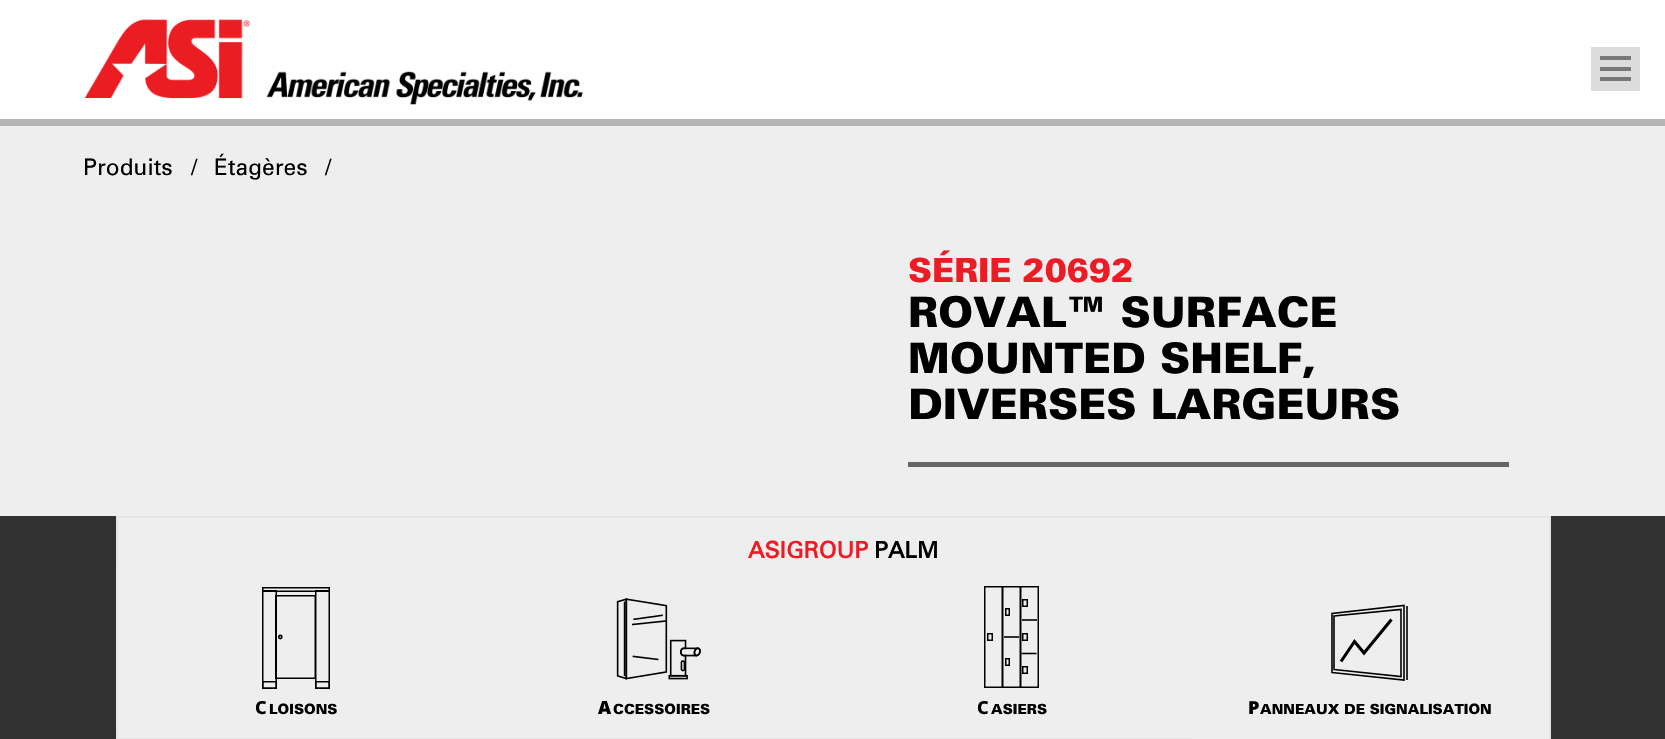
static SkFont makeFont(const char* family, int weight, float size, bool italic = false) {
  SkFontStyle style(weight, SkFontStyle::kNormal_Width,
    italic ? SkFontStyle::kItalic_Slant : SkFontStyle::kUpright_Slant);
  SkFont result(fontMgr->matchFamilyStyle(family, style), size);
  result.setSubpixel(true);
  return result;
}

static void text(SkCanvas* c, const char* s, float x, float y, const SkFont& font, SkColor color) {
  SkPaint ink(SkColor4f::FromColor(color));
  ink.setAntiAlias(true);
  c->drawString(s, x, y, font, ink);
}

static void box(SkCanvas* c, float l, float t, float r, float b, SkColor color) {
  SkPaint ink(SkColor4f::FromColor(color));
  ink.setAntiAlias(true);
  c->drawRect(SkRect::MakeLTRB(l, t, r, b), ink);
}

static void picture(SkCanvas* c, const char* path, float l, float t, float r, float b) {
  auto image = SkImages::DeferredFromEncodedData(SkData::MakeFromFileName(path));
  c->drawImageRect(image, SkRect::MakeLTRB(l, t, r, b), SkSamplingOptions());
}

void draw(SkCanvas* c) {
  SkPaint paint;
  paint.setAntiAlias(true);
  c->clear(0xffeeeeee);
  box(c, 0, 0, 1665, 119, 0xffffffff);
  picture(c, "img_01.png", 84, 19, 583, 105);
  box(c, 1591, 47, 1640, 91, 0xffdddcdc);
  box(c, 1600, 56, 1631, 60, 0xff797777);
  box(c, 1600, 67, 1631, 71, 0xff797777);
  box(c, 1600, 77, 1631, 81, 0xff797777);
  box(c, 0, 119, 1665, 126, 0xffb5b5b5);
  SkFont face1 = makeFont("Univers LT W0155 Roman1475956", 400, 22.75f);
  text(c, "Produits", 83, 175, face1, 0xff000000);
  text(c, "/", 191, 175, face1, 0xff000000);
  text(c, "Étagères", 214, 175, face1, 0xff000000);
  text(c, "/", 325, 175, face1, 0xff000000);
  SkFont face2 = makeFont("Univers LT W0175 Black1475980", 900, 33.25f);
  text(c, "SÉRIE 20692", 908, 282, face2, 0xffed1c24);
  SkFont face3 = makeFont("Univers LT W0175 Black1475980", 900, 42);
  text(c, "ROVAL™ SURFACE", 908, 327, face3, 0xff000000);
  text(c, "MOUNTED SHELF,", 908, 373, face3, 0xff000000);
  text(c, "DIVERSES LARGEURS", 908, 419, face3, 0xff000000);
  box(c, 908, 462, 1509, 467, 0xff666666);
  box(c, 0, 516, 1665, 739, 0xff323232);
  paint.setColor(0xffeeeeee);
  c->drawRect(SkRect::MakeLTRB(117, 517, 1550, 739), paint);
  paint.setStyle(SkPaint::kStroke_Style);
  paint.setStrokeWidth(2);
  paint.setColor(0xffe5e5e5);
  c->drawRect(SkRect::MakeLTRB(117, 517, 1550, 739), paint);
  SkFont face4 = makeFont("Univers LT W0155 Roman1475956", 700, 22.75f);
  text(c, "ASIGROUP", 748, 558, face4, 0xffed1c24);
  text(c, "PALM", 874, 558, face4, 0xff000000);
  paint.setColor(0xffeeeeee);
  c->drawRect(SkRect::MakeLTRB(118, 566, 475, 729), paint);
  paint.setStrokeWidth(1.5f);
  paint.setColor(0xff000000);
  c->drawRect(SkRect::MakeLTRB(262.75f, 590.75f, 276.25f, 688.25f), paint);
  c->drawRect(SkRect::MakeLTRB(315.75f, 590.75f, 329.25f, 688.25f), paint);
  c->drawRect(SkRect::MakeLTRB(262.75f, 681.75f, 276.25f, 688.25f), paint);
  c->drawRect(SkRect::MakeLTRB(315.75f, 681.75f, 329.25f, 688.25f), paint);
  c->drawRect(SkRect::MakeLTRB(275.75f, 595.75f, 315.25f, 678.25f), paint);
  c->drawRect(SkRect::MakeLTRB(262.75f, 587.75f, 329.25f, 591.25f), paint);
  paint.setStrokeWidth(1.6f);
  c->drawCircle(280.3f, 637, 1.6f, paint);
  SkFont face5 = makeFont("Noto Sans", 800, 18);
  text(c, "C", 255, 714, face5, 0xff000000);
  SkFont face6 = makeFont("Univers LT W0175 Black1475980", 900, 14);
  text(c, "LOISONS", 269, 714, face6, 0xff000000);
  picture(c, "img_02.png", 616, 598, 701, 680);
  SkFont face7 = makeFont("Noto Sans", 900, 18);
  text(c, "A", 598, 714, face7, 0xff000000);
  text(c, "CCESSOIRES", 613, 714, face6, 0xff000000);
  paint.setStrokeWidth(1.5f);
  c->drawRect(SkRect::MakeLTRB(984.75f, 586.75f, 1002.25f, 687.25f), paint);
  c->drawRect(SkRect::MakeLTRB(987.75f, 633.75f, 992.25f, 640.25f), paint);
  c->drawRect(SkRect::MakeLTRB(1002.75f, 586.75f, 1020.25f, 687.25f), paint);
  c->drawRect(SkRect::MakeLTRB(1005.75f, 658.75f, 1009.25f, 665.25f), paint);
  c->drawRect(SkRect::MakeLTRB(1005.75f, 608.75f, 1009.25f, 615.25f), paint);
  c->drawRect(SkRect::MakeLTRB(1020.75f, 586.75f, 1038.25f, 687.25f), paint);
  c->drawRect(SkRect::MakeLTRB(1022.75f, 633.75f, 1027.25f, 640.25f), paint);
  c->drawRect(SkRect::MakeLTRB(1022.75f, 599.75f, 1027.25f, 606.25f), paint);
  c->drawRect(SkRect::MakeLTRB(1022.75f, 666.75f, 1027.25f, 673.25f), paint);
  box(c, 1004, 636, 1019, 638, 0xff303030);
  box(c, 1022, 619, 1037, 621, 0xff303030);
  paint.setStrokeWidth(1.6f);
  c->drawPath(SkPathBuilder().moveTo(1036.5f, 653.5f).lineTo(1021.5f, 653.5f).detach(), paint);
  text(c, "C", 977, 714, face5, 0xff000000);
  text(c, "ASIERS", 991, 714, face6, 0xff000000);
  paint.setStrokeWidth(2);
  paint.setColor(0xffeeeeee);
  c->drawRect(SkRect::MakeLTRB(1193, 566, 1548, 738), paint);
  paint.setStrokeWidth(1.6f);
  paint.setColor(0xff000000);
  c->drawPath(SkPathBuilder().moveTo(1332, 672.5f).lineTo(1404, 680).lineTo(1404, 605.5f).lineTo(1332, 613.5f).close().detach(), paint);
  c->drawPath(SkPathBuilder().moveTo(1334, 669.5f).lineTo(1401, 676.5f).lineTo(1401, 609.5f).lineTo(1334, 616).close().detach(), paint);
  box(c, 1406, 606, 1408, 680, 0xff303030);
  paint.setStrokeWidth(3.1f);
  c->drawPath(SkPathBuilder().moveTo(1341, 661.5f).lineTo(1354.5f, 641.5f).lineTo(1364, 653).lineTo(1391.5f, 619.5f).detach(), paint);
  text(c, "P", 1248, 714, face7, 0xff000000);
  text(c, "ANNEAUX DE SIGNALISATION", 1260, 714, face6, 0xff000000);
}
